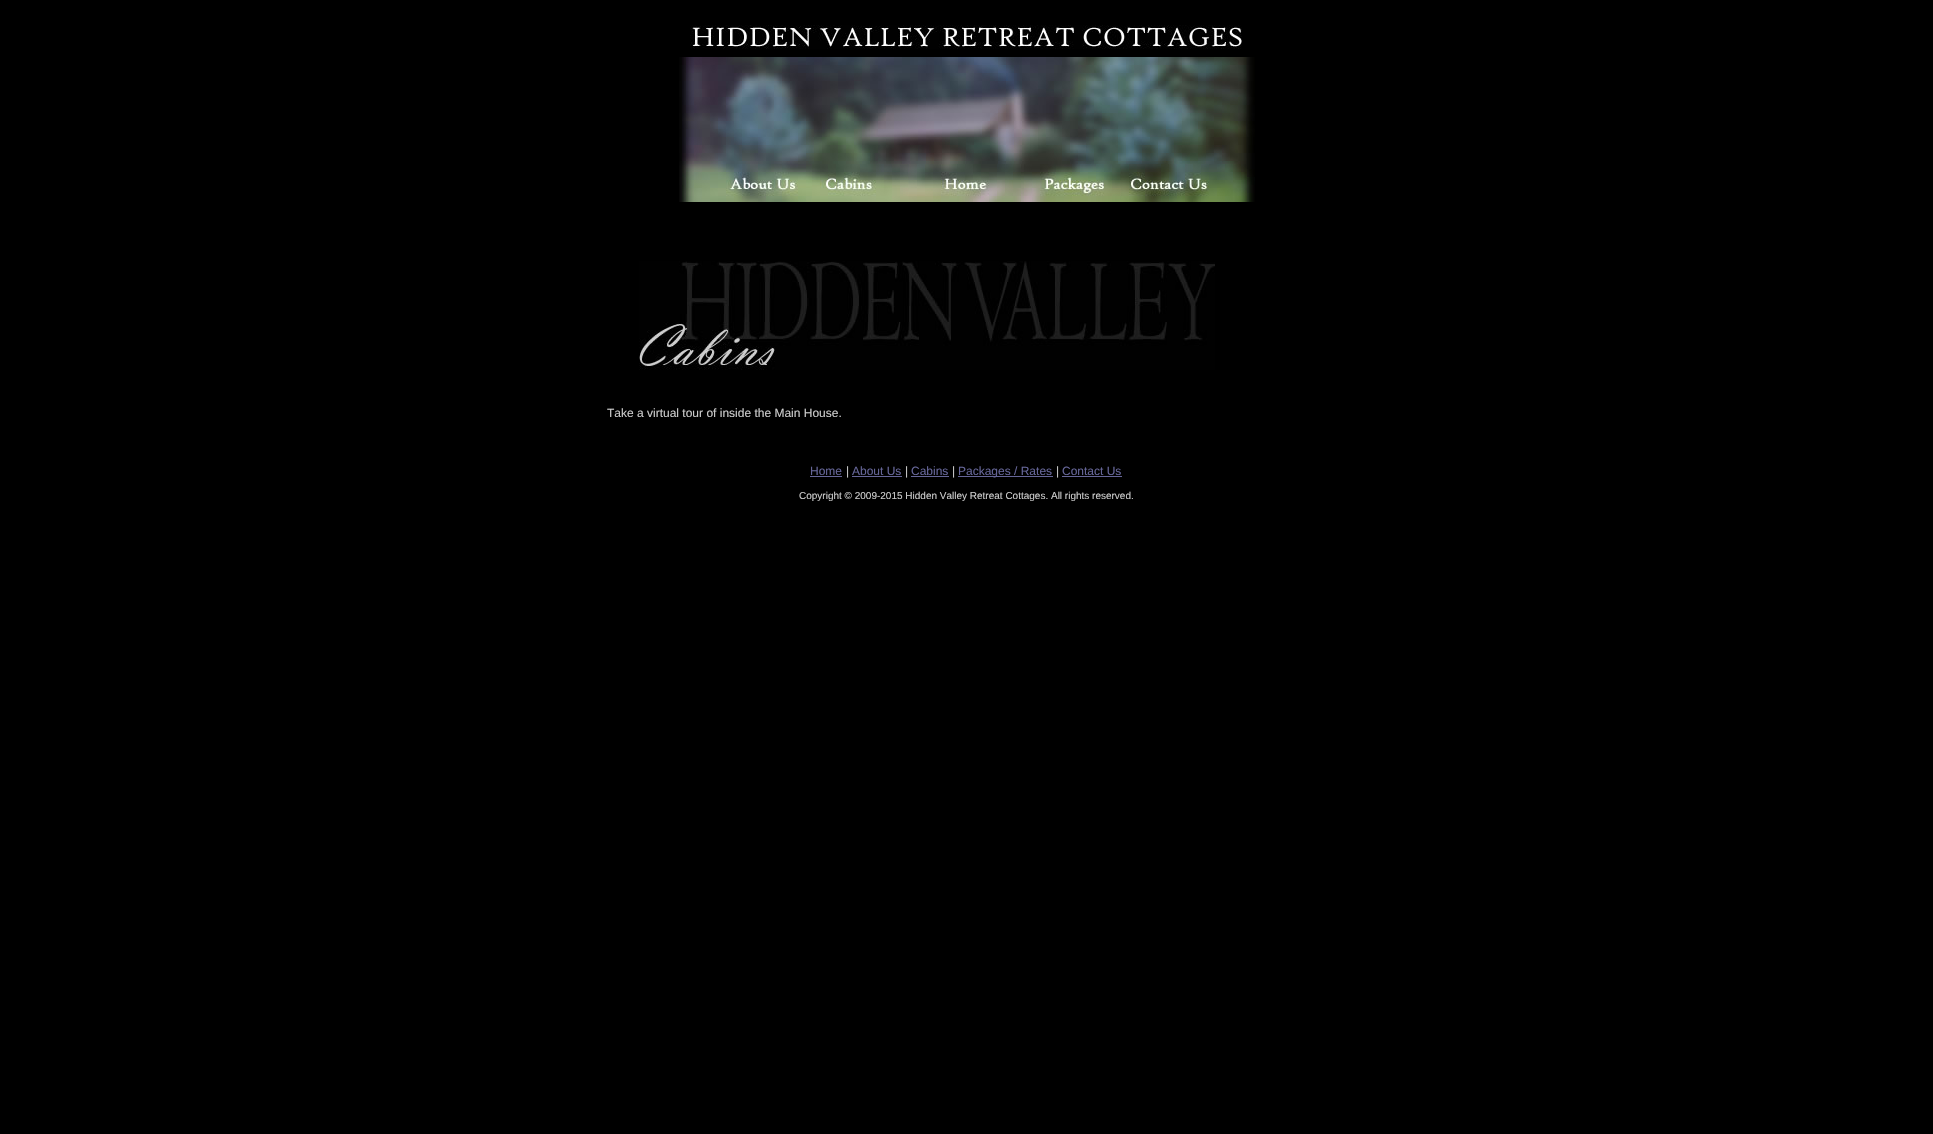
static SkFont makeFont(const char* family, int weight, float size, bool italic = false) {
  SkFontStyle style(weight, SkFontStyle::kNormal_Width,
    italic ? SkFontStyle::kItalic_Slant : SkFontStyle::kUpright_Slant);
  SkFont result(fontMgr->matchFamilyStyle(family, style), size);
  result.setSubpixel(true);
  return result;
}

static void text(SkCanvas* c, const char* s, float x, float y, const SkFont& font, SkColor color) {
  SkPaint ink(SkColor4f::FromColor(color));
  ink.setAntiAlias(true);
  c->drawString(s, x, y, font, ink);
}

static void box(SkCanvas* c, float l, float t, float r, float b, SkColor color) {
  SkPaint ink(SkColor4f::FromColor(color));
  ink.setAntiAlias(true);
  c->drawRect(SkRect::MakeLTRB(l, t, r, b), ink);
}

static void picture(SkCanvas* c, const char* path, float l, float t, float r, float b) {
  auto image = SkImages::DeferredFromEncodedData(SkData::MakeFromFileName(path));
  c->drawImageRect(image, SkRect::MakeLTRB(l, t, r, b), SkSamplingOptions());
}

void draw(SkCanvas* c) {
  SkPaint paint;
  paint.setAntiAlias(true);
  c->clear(0xff000000);
  picture(c, "img_01.png", 690, 25, 1242, 49);
  picture(c, "img_02.png", 679, 57, 686, 202);
  picture(c, "img_03.png", 686, 57, 1247, 164);
  picture(c, "img_04.png", 1247, 57, 1255, 202);
  picture(c, "img_05.png", 686, 164, 812, 202);
  picture(c, "img_06.png", 812, 164, 909, 202);
  picture(c, "img_07.png", 909, 164, 1024, 202);
  picture(c, "img_08.png", 1024, 164, 1121, 202);
  picture(c, "img_09.png", 1121, 164, 1247, 202);
  picture(c, "img_10.png", 639, 261, 1215, 370);
  SkFont face1 = makeFont("Liberation Sans", 400, 12);
  text(c, "Take a virtual tour of inside the Main House.", 607, 417, face1, 0xffcccccc);
  text(c, "Home", 810, 475, face1, 0xff666699);
  box(c, 810, 476, 842, 477, 0xff666699);
  text(c, "|", 846, 475, face1, 0xffcccccc);
  text(c, "About Us", 852, 475, face1, 0xff666699);
  box(c, 852, 476, 902, 477, 0xff666699);
  text(c, "|", 905, 475, face1, 0xffcccccc);
  text(c, "Cabins", 911, 475, face1, 0xff666699);
  box(c, 911, 476, 949, 477, 0xff666699);
  text(c, "|", 952, 475, face1, 0xffcccccc);
  box(c, 958, 476, 1053, 477, 0xff666699);
  text(c, "Packages / Rates", 958, 475, face1, 0xff666699);
  text(c, "|", 1056, 475, face1, 0xffcccccc);
  text(c, "Contact Us", 1062, 475, face1, 0xff666699);
  box(c, 1062, 476, 1122, 477, 0xff666699);
  SkFont face2 = makeFont("Liberation Sans", 400, 10);
  text(c, "Copyright © 2009-2015 Hidden Valley Retreat Cottages. All rights reserved.", 799, 499, face2, 0xffcccccc);
}
